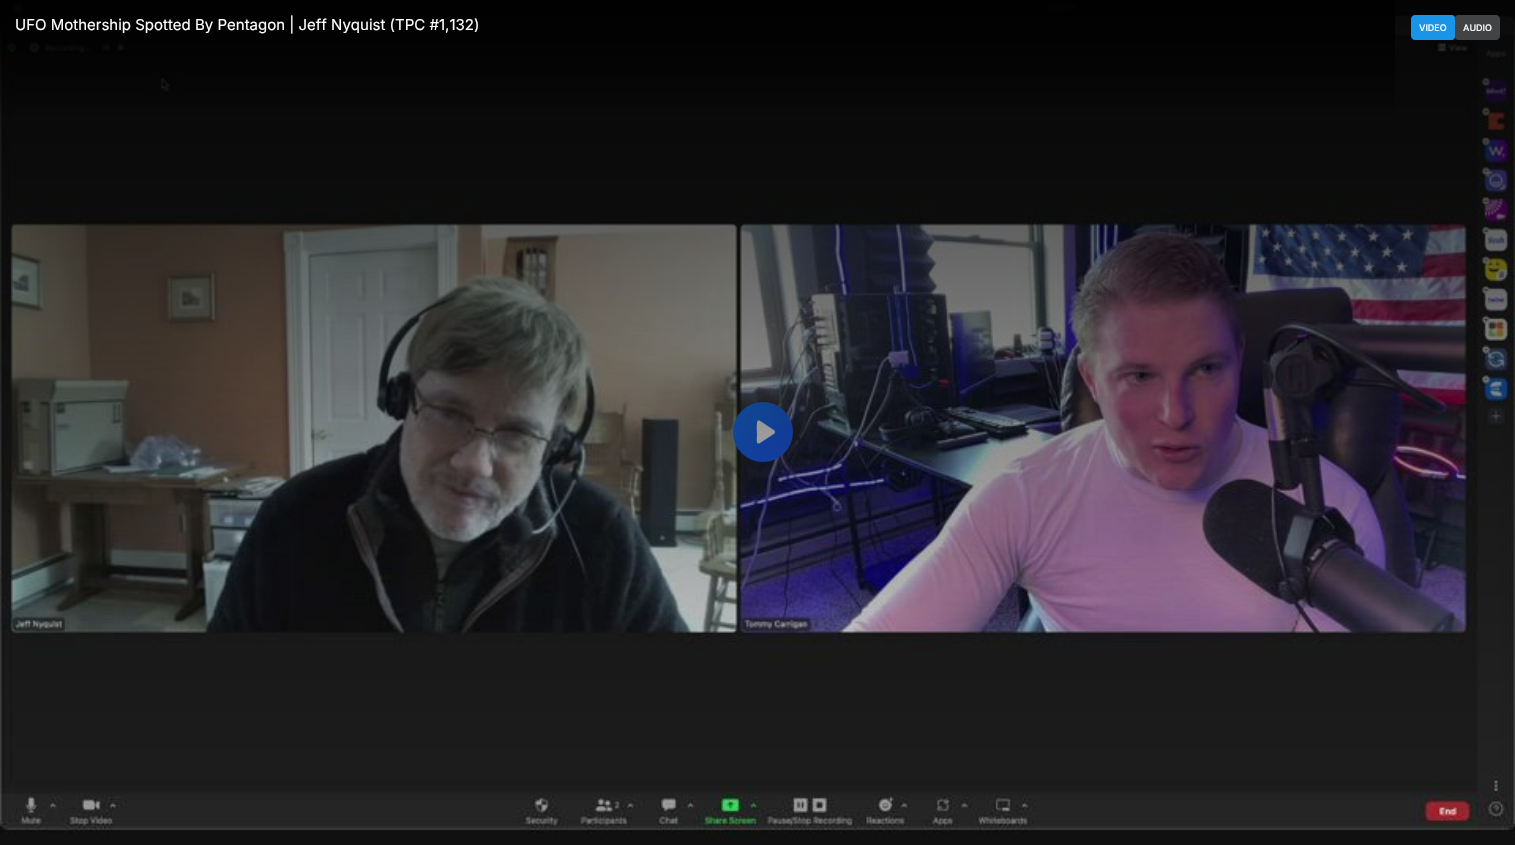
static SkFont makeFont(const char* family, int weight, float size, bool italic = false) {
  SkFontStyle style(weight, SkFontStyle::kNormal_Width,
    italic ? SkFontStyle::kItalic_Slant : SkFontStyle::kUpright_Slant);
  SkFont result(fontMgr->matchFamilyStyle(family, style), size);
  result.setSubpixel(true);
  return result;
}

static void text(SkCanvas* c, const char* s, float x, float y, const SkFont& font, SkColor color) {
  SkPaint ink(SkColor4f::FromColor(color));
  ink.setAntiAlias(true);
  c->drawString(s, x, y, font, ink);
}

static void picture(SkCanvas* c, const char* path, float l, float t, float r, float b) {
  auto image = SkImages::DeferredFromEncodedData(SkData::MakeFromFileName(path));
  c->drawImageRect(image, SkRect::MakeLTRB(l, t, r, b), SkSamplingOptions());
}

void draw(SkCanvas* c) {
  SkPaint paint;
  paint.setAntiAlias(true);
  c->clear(0xffffffff);
  picture(c, "img_01.png", 0, 0, 1515, 845);
  {
    const SkColor colors[] = {0xff1a7efa, 0xff1c61f9};
    const float stops[] = {0, 1};
    const SkPoint ends[] = {{738, 401}, {774, 445}};
    paint.setShader(SkGradientShader::MakeLinear(ends, colors, stops, 2, SkTileMode::kClamp));
    paint.setAlpha(255);
  }
  c->drawCircle(763, 432, 30, paint);
  paint.setShader(nullptr);
  paint.setColor(0xffffffff);
  c->drawPath(SkPathBuilder().moveTo(760, 443).cubicTo(755.5f, 446, 757, 436.5f, 757, 435).cubicTo(757, 433, 756, 421.5f, 758, 420.5f).lineTo(759.5f, 420.5f).lineTo(774.5f, 430.5f).lineTo(775, 432).lineTo(774.5f, 433.5f).close().detach(), paint);
  {
    const SkColor colors[] = {0xcc000000, 0x00000000};
    const float stops[] = {0, 1};
    const SkPoint ends[] = {{758, 0}, {758, 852}};
    paint.setShader(SkGradientShader::MakeLinear(ends, colors, stops, 2, SkTileMode::kClamp));
    paint.setAlpha(255);
  }
  c->drawRect(SkRect::MakeLTRB(0, 0, 1515, 824), paint);
  {
    const SkColor colors[] = {0xe6000000, 0x00000000};
    const float stops[] = {0.2f, 1};
    const SkPoint ends[] = {{698, 0}, {698, 128}};
    paint.setShader(SkGradientShader::MakeLinear(ends, colors, stops, 2, SkTileMode::kClamp));
    paint.setAlpha(255);
  }
  c->drawRect(SkRect::MakeLTRB(0, 0, 1395, 114), paint);
  SkFont face1 = makeFont("Inter", 400, 15);
  text(c, "UFO Mothership Spotted By Pentagon | Jeff Nyquist (TPC #1,132)", 15, 30, face1, 0xffffffff);
  paint.setShader(nullptr);
  paint.setColor(0xff1994e8);
  c->drawPath(SkPathBuilder().moveTo(1415, 15).lineTo(1452, 15).cubicTo(1453.5f, 15, 1455, 16.5f, 1455, 18).lineTo(1455, 37).cubicTo(1455, 38.5f, 1453.5f, 40, 1452, 40).lineTo(1415, 40).cubicTo(1413, 40, 1411, 38, 1411, 36).lineTo(1411, 19).cubicTo(1411, 17, 1413, 15, 1415, 15).close().detach(), paint);
  SkFont face2 = makeFont("Inter", 500, 9);
  text(c, "VIDEO", 1419, 31, face2, 0xffffffff);
  paint.setColor(0xff424345);
  c->drawPath(SkPathBuilder().moveTo(1458, 15).lineTo(1496, 15).cubicTo(1498, 15, 1500, 17, 1500, 19).lineTo(1500, 36).cubicTo(1500, 38, 1498, 40, 1496, 40).lineTo(1458, 40).cubicTo(1456.5f, 40, 1455, 38.5f, 1455, 37).lineTo(1455, 18).cubicTo(1455, 16.5f, 1456.5f, 15, 1458, 15).close().detach(), paint);
  text(c, "AUDIO", 1463, 31, face2, 0xffffffff);
}
